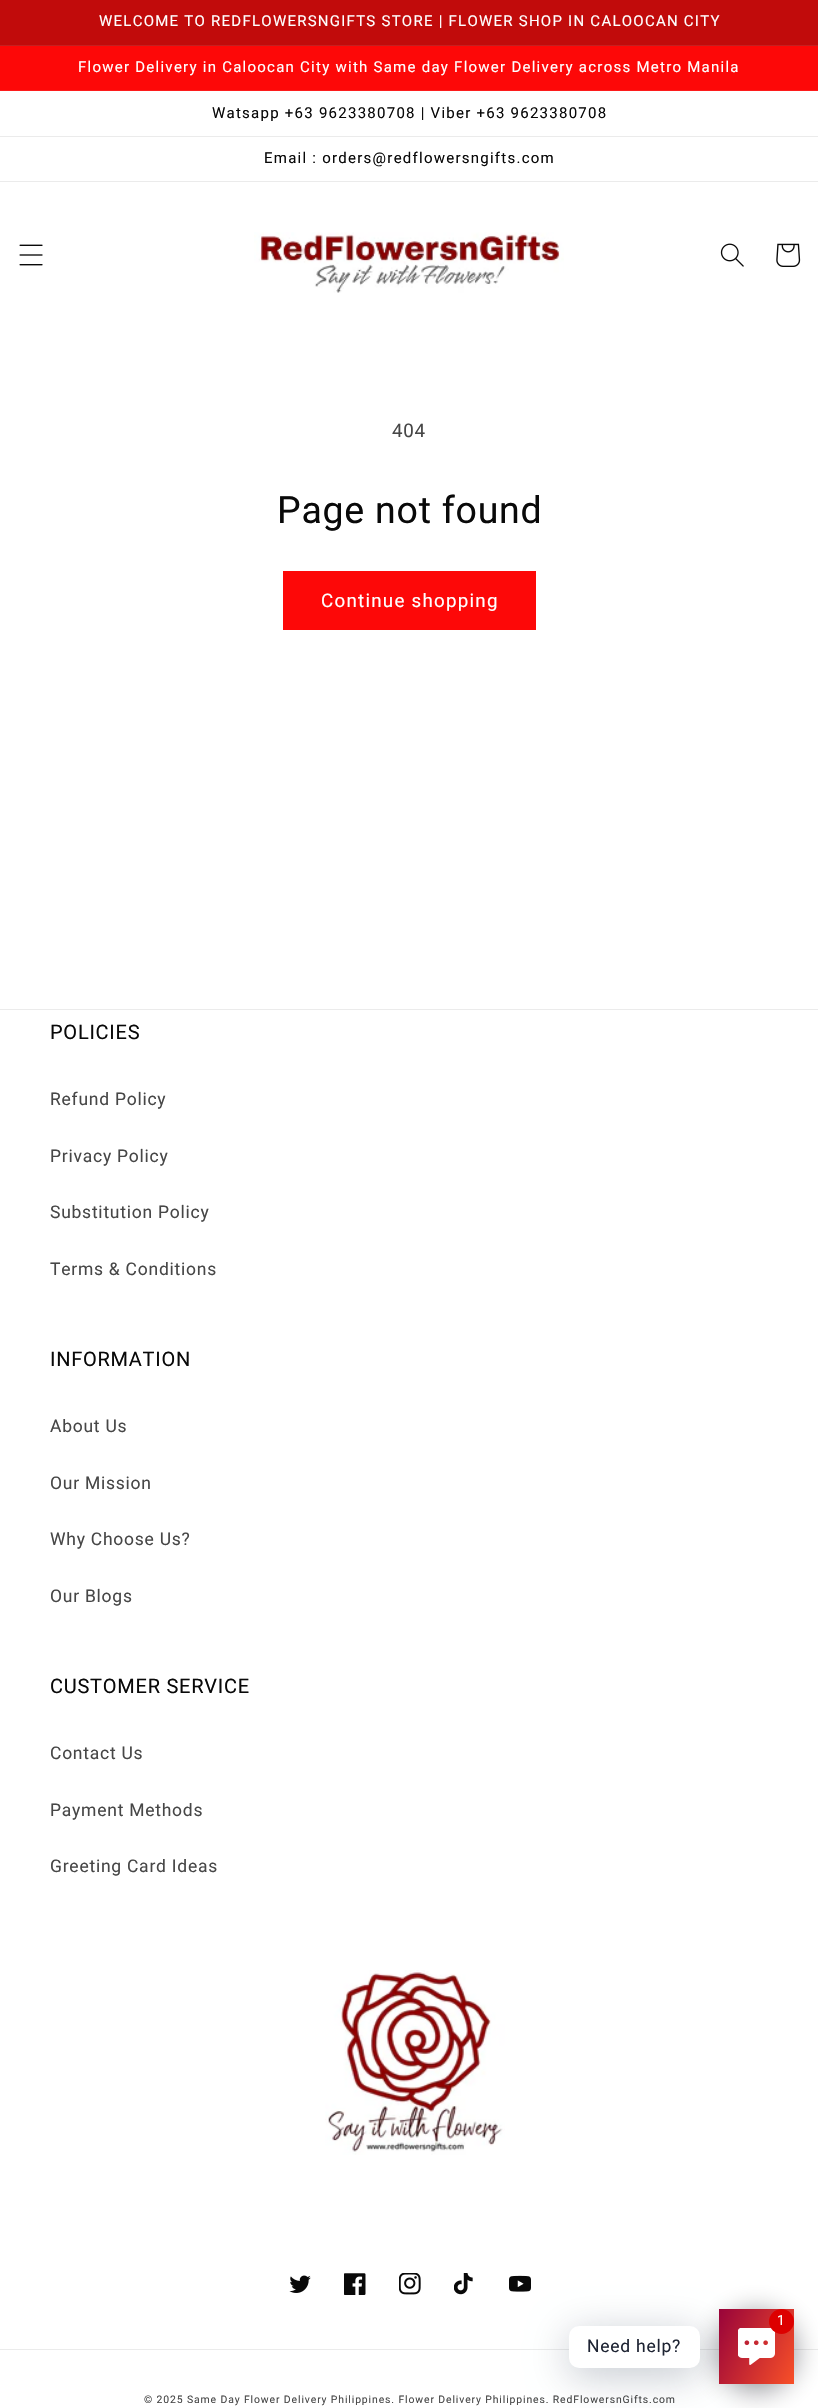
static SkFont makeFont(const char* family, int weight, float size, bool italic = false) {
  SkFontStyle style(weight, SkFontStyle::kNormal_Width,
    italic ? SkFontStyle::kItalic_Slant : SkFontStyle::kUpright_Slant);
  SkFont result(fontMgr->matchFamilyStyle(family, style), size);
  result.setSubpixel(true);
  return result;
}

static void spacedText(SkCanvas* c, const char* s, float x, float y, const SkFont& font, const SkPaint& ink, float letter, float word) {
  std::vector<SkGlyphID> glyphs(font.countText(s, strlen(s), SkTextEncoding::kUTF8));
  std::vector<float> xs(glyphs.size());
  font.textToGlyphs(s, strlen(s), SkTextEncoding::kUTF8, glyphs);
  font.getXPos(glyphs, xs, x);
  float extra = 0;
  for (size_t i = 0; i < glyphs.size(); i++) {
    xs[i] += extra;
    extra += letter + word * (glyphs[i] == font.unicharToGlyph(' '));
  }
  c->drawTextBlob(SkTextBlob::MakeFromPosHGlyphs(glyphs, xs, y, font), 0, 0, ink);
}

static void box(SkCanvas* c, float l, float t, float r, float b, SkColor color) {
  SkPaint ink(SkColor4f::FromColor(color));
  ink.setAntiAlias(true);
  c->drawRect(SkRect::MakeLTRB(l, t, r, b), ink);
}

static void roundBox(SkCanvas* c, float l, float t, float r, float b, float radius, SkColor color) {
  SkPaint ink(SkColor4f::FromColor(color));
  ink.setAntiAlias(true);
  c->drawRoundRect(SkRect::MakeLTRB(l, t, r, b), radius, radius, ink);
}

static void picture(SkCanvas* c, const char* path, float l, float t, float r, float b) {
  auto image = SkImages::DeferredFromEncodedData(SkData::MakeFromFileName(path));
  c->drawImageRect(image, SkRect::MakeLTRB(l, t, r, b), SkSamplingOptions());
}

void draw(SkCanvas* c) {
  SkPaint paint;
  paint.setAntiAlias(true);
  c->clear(0xffffffff);
  box(c, 0, 0, 818, 45, 0xffc10b0b);
  box(c, 0, 45, 818, 46, 0xffc61f1f);
  SkFont face1 = makeFont("Roboto", 400, 15);
  paint.setColor(0xffffffff);
  spacedText(c, "WELCOME TO REDFLOWERSNGIFTS STORE | FLOWER SHOP IN CALOOCAN CITY", 99, 26, face1, paint, 1.25f, 0);
  box(c, 0, 46, 818, 90, 0xfffd0808);
  box(c, 0, 90, 818, 91, 0xfffd1c1c);
  spacedText(c, "Flower Delivery in Caloocan City with Same day Flower Delivery across Metro Manila", 78, 72, face1, paint, 1.25f, 0);
  box(c, 0, 136, 818, 137, 0xffebebeb);
  paint.setColor(0xff090909);
  spacedText(c, "Watsapp +63 9623380708 | Viber +63 9623380708", 212, 118, face1, paint, 1.25f, 0);
  box(c, 0, 181, 818, 182, 0xffebebeb);
  spacedText(c, "Email : orders@redflowersngifts.com", 264, 163, face1, paint, 1.25f, 0);
  picture(c, "img_01.png", 19, 244, 43, 266);
  picture(c, "img_02.png", 254, 232, 564, 293);
  picture(c, "img_03.png", 720, 243, 744, 267);
  picture(c, "img_04.png", 776, 243, 801, 267);
  SkFont face2 = makeFont("Roboto", 400, 18.75f);
  paint.setColor(0xff474747);
  spacedText(c, "404", 392, 437, face2, paint, 0.75f, 0);
  SkFont face3 = makeFont("Roboto", 400, 37.5f);
  paint.setColor(0xff090909);
  spacedText(c, "Page not found", 277, 523, face3, paint, 0.75f, 0);
  box(c, 283, 571, 536, 630, 0xfffd0808);
  paint.setColor(0xffffffff);
  spacedText(c, "Continue shopping", 321, 607, face2, paint, 1.25f, 0);
  box(c, 0, 1009, 818, 1010, 0xffebebeb);
  SkFont face4 = makeFont("Roboto", 400, 20);
  paint.setColor(0xff090909);
  spacedText(c, "POLICIES", 50, 1039, face4, paint, 0.75f, 0);
  SkFont face5 = makeFont("Roboto", 400, 17.5f);
  paint.setColor(0xff474747);
  spacedText(c, "Refund Policy", 50, 1105, face5, paint, 0.75f, 0);
  spacedText(c, "Privacy Policy", 50, 1162, face5, paint, 0.75f, 0);
  spacedText(c, "Substitution Policy", 50, 1218, face5, paint, 0.75f, 0);
  spacedText(c, "Terms & Conditions", 50, 1275, face5, paint, 0.75f, 0);
  paint.setColor(0xff090909);
  spacedText(c, "INFORMATION", 50, 1366, face4, paint, 0.75f, 0);
  paint.setColor(0xff474747);
  spacedText(c, "About Us", 50, 1432, face5, paint, 0.75f, 0);
  spacedText(c, "Our Mission", 50, 1489, face5, paint, 0.75f, 0);
  spacedText(c, "Why Choose Us?", 50, 1545, face5, paint, 0.75f, 0);
  spacedText(c, "Our Blogs", 50, 1602, face5, paint, 0.75f, 0);
  paint.setColor(0xff090909);
  spacedText(c, "CUSTOMER SERVICE", 50, 1693, face4, paint, 0.75f, 0);
  paint.setColor(0xff474747);
  spacedText(c, "Contact Us", 50, 1759, face5, paint, 0.75f, 0);
  spacedText(c, "Payment Methods", 50, 1816, face5, paint, 0.75f, 0);
  spacedText(c, "Greeting Card Ideas", 50, 1872, face5, paint, 0.75f, 0);
  picture(c, "img_05.png", 325, 1970, 505, 2155);
  picture(c, "img_06.png", 289, 2275, 311, 2293);
  picture(c, "img_07.png", 344, 2273, 366, 2295);
  picture(c, "img_08.png", 399, 2273, 421, 2295);
  picture(c, "img_09.png", 454, 2273, 473, 2295);
  picture(c, "img_10.png", 509, 2275, 531, 2292);
  box(c, 0, 2349, 818, 2350, 0xffebebeb);
  SkFont face6 = makeFont("Roboto", 400, 10.42f);
  spacedText(c, "© 2025 Same Day Flower Delivery Philippines. Flower Delivery Philippines. RedFlowersnGifts.com", 144, 2403, face6, paint, 0.88f, 0);
  paint.setColor(0x80020610);
  paint.setMaskFilter(SkMaskFilter::MakeBlur(kNormal_SkBlurStyle, 15));
  c->drawRoundRect(SkRect::MakeLTRB(719, 2314, 794, 2389), 37.5f, 37.5f, paint);
  paint.setMaskFilter(nullptr);
  paint.setColor(0x3d00122e);
  paint.setMaskFilter(SkMaskFilter::MakeBlur(kNormal_SkBlurStyle, 20));
  c->drawRoundRect(SkRect::MakeLTRB(569, 2334, 700, 2375), 10, 10, paint);
  paint.setMaskFilter(nullptr);
  {
    const SkColor colors[] = {0xff98033a, 0xfff74f28};
    const float stops[] = {0, 1};
    const SkPoint ends[] = {{711, 2325}, {801, 2367}};
    paint.setShader(SkGradientShader::MakeLinear(ends, colors, stops, 2, SkTileMode::kClamp));
    paint.setAlpha(255);
  }
  c->drawRect(SkRect::MakeLTRB(719, 2309, 794, 2384), paint);
  picture(c, "img_11.png", 738, 2328, 775, 2365);
  paint.setShader(nullptr);
  paint.setColor(0xffdd0000);
  c->drawCircle(781.5f, 2321.5f, 12.5f, paint);
  SkFont face7 = makeFont("Roboto", 400, 14);
  paint.setColor(0xffffffff);
  spacedText(c, "1", 777, 2325, face7, paint, 0.75f, 0);
  roundBox(c, 569, 2326, 700, 2368, 10, 0xffffffff);
  paint.setColor(0xff1e2433);
  spacedText(c, "Need help?", 587, 2352, face5, paint, 0.75f, 0);
}
